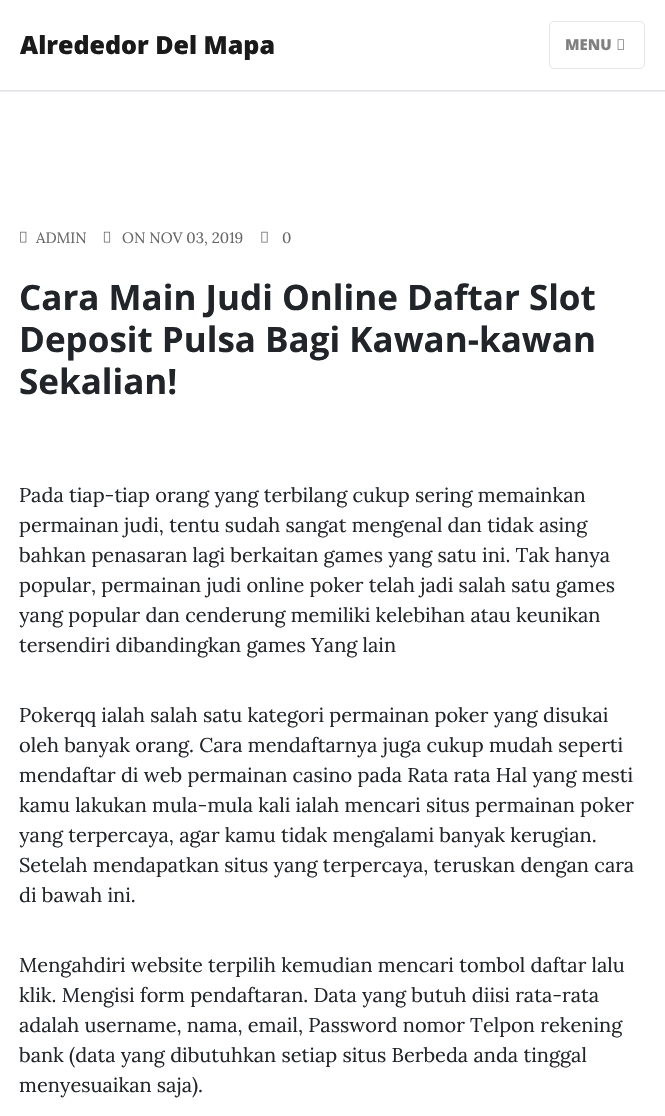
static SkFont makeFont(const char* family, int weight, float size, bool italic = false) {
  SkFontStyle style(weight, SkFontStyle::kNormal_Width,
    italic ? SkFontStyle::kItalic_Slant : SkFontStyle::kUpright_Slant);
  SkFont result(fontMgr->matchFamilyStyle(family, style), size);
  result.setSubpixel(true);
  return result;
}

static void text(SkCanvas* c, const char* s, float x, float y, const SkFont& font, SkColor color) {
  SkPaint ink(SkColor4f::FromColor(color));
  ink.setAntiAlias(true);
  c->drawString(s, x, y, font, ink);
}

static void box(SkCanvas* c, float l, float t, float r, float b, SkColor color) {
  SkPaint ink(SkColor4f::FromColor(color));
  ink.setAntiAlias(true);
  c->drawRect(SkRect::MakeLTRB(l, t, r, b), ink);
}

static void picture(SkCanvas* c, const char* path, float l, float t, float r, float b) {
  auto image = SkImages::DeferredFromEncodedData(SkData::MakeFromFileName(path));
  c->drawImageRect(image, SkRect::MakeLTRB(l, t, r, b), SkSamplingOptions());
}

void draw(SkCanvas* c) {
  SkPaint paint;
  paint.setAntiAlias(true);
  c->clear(0xffffffff);
  box(c, 0, 91, 665, 92, 0xffeeeeee);
  box(c, 0, 90, 665, 91, 0xffdee2e6);
  SkFont face1 = makeFont("Open Sans", 800, 25);
  text(c, "Alrededor Del Mapa", 20, 54, face1, 0xff1a1a1a);
  paint.setStyle(SkPaint::kStroke_Style);
  paint.setStrokeWidth(1);
  paint.setColor(0xffe6e6e6);
  c->drawRoundRect(SkRect::MakeLTRB(549.5f, 21.5f, 644.5f, 68.5f), 4.5f, 4.5f, paint);
  SkFont face2 = makeFont("Open Sans", 800, 15);
  text(c, "MENU", 565, 50, face2, 0xff808080);
  picture(c, "img_01.png", 617, 39, 624, 50);
  picture(c, "img_02.png", 20, 231, 27, 243);
  SkFont face3 = makeFont("Lora", 400, 15);
  text(c, "ADMIN", 36, 243, face3, 0xff666666);
  picture(c, "img_03.png", 103, 231, 111, 243);
  text(c, "ON NOV 03, 2019", 122, 243, face3, 0xff666666);
  picture(c, "img_04.png", 261, 231, 268, 243);
  text(c, "0", 282, 243, face3, 0xff666666);
  SkFont face4 = makeFont("Open Sans", 700, 35);
  text(c, "Cara Main Judi Online Daftar Slot", 19, 310, face4, 0xff212529);
  text(c, "Deposit Pulsa Bagi Kawan-kawan", 19, 352, face4, 0xff212529);
  text(c, "Sekalian!", 19, 394, face4, 0xff212529);
  SkFont face5 = makeFont("Lora", 400, 20);
  text(c, "Pada tiap-tiap orang yang terbilang cukup sering memainkan", 19, 502, face5, 0xff212529);
  text(c, "permainan judi, tentu sudah sangat mengenal dan tidak asing", 19, 532, face5, 0xff212529);
  text(c, "bahkan penasaran lagi berkaitan games yang satu ini. Tak hanya", 19, 562, face5, 0xff212529);
  text(c, "popular, permainan judi online poker telah jadi salah satu games", 19, 592, face5, 0xff212529);
  text(c, "yang popular dan cenderung memiliki kelebihan atau keunikan", 19, 622, face5, 0xff212529);
  text(c, "tersendiri dibandingkan games Yang lain", 19, 652, face5, 0xff212529);
  text(c, "Pokerqq ialah salah satu kategori permainan poker yang disukai", 19, 722, face5, 0xff212529);
  text(c, "oleh banyak orang. Cara mendaftarnya juga cukup mudah seperti", 19, 752, face5, 0xff212529);
  text(c, "mendaftar di web permainan casino pada Rata rata Hal yang mesti", 19, 782, face5, 0xff212529);
  text(c, "kamu lakukan mula-mula kali ialah mencari situs permainan poker", 19, 812, face5, 0xff212529);
  text(c, "yang terpercaya, agar kamu tidak mengalami banyak kerugian.", 19, 842, face5, 0xff212529);
  text(c, "Setelah mendapatkan situs yang terpercaya, teruskan dengan cara", 19, 872, face5, 0xff212529);
  text(c, "di bawah ini.", 19, 902, face5, 0xff212529);
  text(c, "Mengahdiri website terpilih kemudian mencari tombol daftar lalu", 19, 972, face5, 0xff212529);
  text(c, "klik. Mengisi form pendaftaran. Data yang butuh diisi rata-rata", 19, 1002, face5, 0xff212529);
  text(c, "adalah username, nama, email, Password nomor Telpon rekening", 19, 1032, face5, 0xff212529);
  text(c, "bank (data yang dibutuhkan setiap situs Berbeda anda tinggal", 19, 1062, face5, 0xff212529);
  text(c, "menyesuaikan saja).", 19, 1092, face5, 0xff212529);
}
